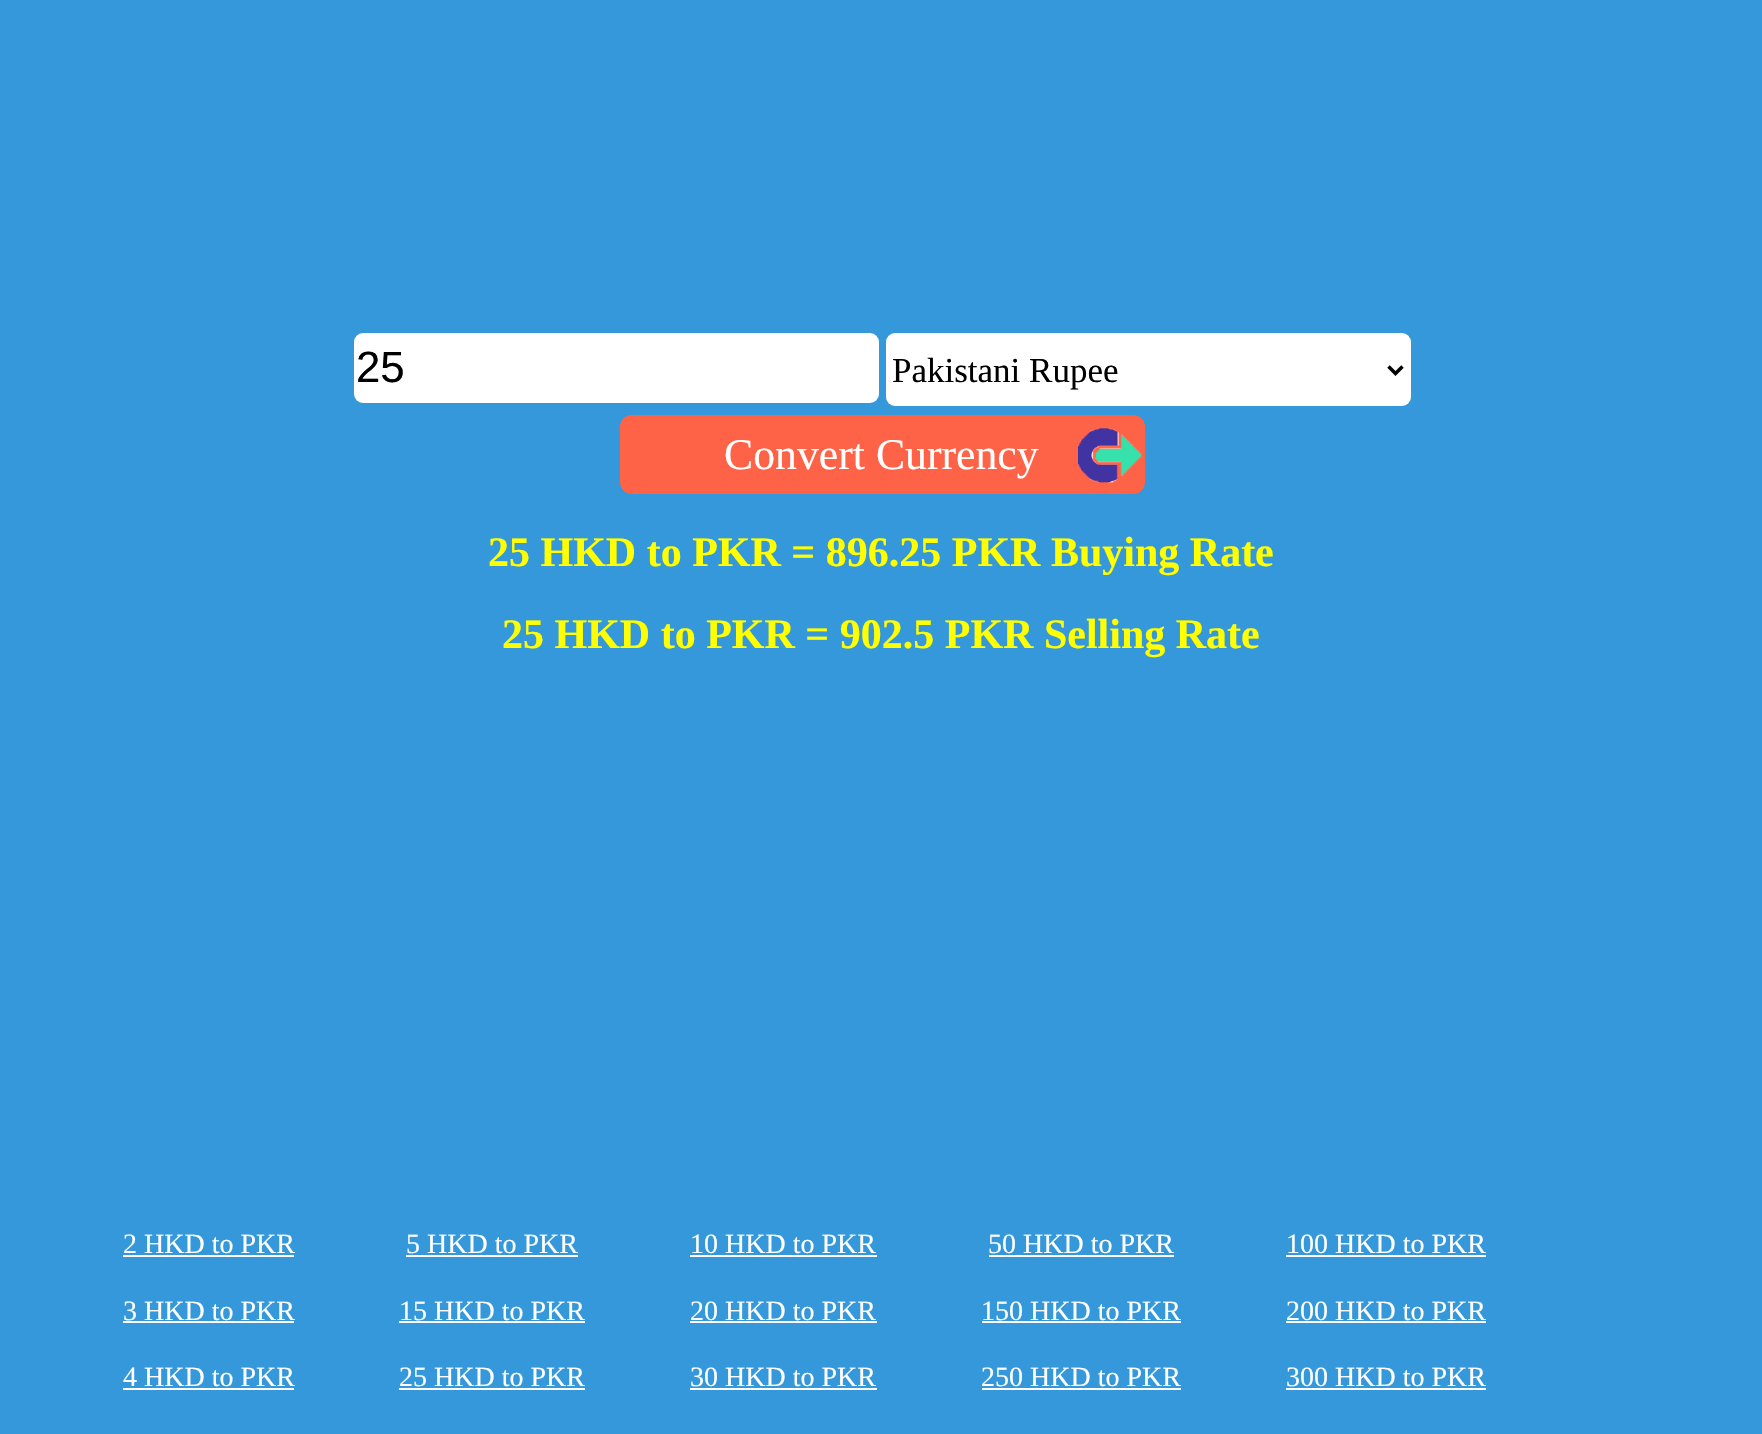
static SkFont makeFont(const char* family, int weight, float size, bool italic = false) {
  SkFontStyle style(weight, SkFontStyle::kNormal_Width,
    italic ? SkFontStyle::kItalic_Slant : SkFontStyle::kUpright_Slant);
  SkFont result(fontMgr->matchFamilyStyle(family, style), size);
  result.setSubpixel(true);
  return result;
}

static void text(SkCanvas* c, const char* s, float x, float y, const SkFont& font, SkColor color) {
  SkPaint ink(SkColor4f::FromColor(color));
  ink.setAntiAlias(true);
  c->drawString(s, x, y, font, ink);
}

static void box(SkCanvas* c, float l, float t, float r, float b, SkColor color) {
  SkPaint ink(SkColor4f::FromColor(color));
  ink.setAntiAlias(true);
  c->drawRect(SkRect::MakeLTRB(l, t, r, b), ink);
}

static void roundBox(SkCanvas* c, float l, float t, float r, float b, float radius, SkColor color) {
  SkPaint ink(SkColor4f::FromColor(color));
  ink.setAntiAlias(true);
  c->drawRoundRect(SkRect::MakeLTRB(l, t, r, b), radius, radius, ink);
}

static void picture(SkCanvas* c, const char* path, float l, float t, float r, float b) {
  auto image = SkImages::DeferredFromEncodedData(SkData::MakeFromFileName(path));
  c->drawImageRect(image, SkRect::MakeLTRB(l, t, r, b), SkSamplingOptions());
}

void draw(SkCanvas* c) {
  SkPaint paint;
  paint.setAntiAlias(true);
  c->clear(0xff3498db);
  roundBox(c, 354, 333, 879, 403, 9, 0xffffffff);
  SkFont face1 = makeFont("Liberation Sans", 400, 43.75f);
  text(c, "25", 356, 382, face1, 0xff000000);
  roundBox(c, 886, 333, 1411, 406, 9, 0xffffffff);
  paint.setStyle(SkPaint::kStroke_Style);
  paint.setStrokeWidth(3.5f);
  paint.setColor(0xff000000);
  c->drawPath(SkPathBuilder().moveTo(1388.5f, 366.5f).lineTo(1395.5f, 373.5f).lineTo(1402.5f, 366.5f).detach(), paint);
  SkFont face2 = makeFont("Liberation Serif", 400, 35);
  text(c, "Pakistani Rupee", 892, 382, face2, 0xff000000);
  roundBox(c, 620, 415, 1145, 494, 12, 0xffff6347);
  picture(c, "img_01.png", 1078, 428, 1142, 483);
  SkFont face3 = makeFont("Liberation Serif", 400, 43.75f);
  text(c, "Convert Currency", 724, 469, face3, 0xffffffff);
  SkFont face4 = makeFont("Liberation Serif", 700, 42);
  text(c, "25 HKD to PKR = 896.25 PKR Buying Rate", 488, 566, face4, 0xffffff00);
  text(c, "25 HKD to PKR = 902.5 PKR Selling Rate", 502, 648, face4, 0xffffff00);
  SkFont face5 = makeFont("Liberation Serif", 400, 28);
  text(c, "2 HKD to PKR", 123, 1253, face5, 0xffffffff);
  box(c, 123, 1255, 294, 1257, 0xffffffff);
  text(c, "3 HKD to PKR", 123, 1320, face5, 0xffffffff);
  box(c, 123, 1321, 294, 1323, 0xffffffff);
  text(c, "4 HKD to PKR", 123, 1386, face5, 0xffffffff);
  box(c, 123, 1388, 294, 1390, 0xffffffff);
  text(c, "5 HKD to PKR", 406, 1253, face5, 0xffffffff);
  box(c, 406, 1255, 578, 1257, 0xffffffff);
  text(c, "15 HKD to PKR", 399, 1320, face5, 0xffffffff);
  box(c, 399, 1321, 585, 1323, 0xffffffff);
  text(c, "25 HKD to PKR", 399, 1386, face5, 0xffffffff);
  box(c, 399, 1388, 585, 1390, 0xffffffff);
  text(c, "10 HKD to PKR", 690, 1253, face5, 0xffffffff);
  box(c, 690, 1255, 877, 1257, 0xffffffff);
  text(c, "20 HKD to PKR", 690, 1320, face5, 0xffffffff);
  box(c, 690, 1321, 877, 1323, 0xffffffff);
  text(c, "30 HKD to PKR", 690, 1386, face5, 0xffffffff);
  box(c, 690, 1388, 877, 1390, 0xffffffff);
  text(c, "50 HKD to PKR", 988, 1253, face5, 0xffffffff);
  box(c, 989, 1255, 1174, 1257, 0xffffffff);
  text(c, "150 HKD to PKR", 981, 1320, face5, 0xffffffff);
  box(c, 982, 1321, 1181, 1323, 0xffffffff);
  text(c, "250 HKD to PKR", 981, 1386, face5, 0xffffffff);
  box(c, 982, 1388, 1181, 1390, 0xffffffff);
  text(c, "100 HKD to PKR", 1286, 1253, face5, 0xffffffff);
  box(c, 1286, 1255, 1486, 1257, 0xffffffff);
  text(c, "200 HKD to PKR", 1286, 1320, face5, 0xffffffff);
  box(c, 1286, 1321, 1486, 1323, 0xffffffff);
  text(c, "300 HKD to PKR", 1286, 1386, face5, 0xffffffff);
  box(c, 1286, 1388, 1486, 1390, 0xffffffff);
}
